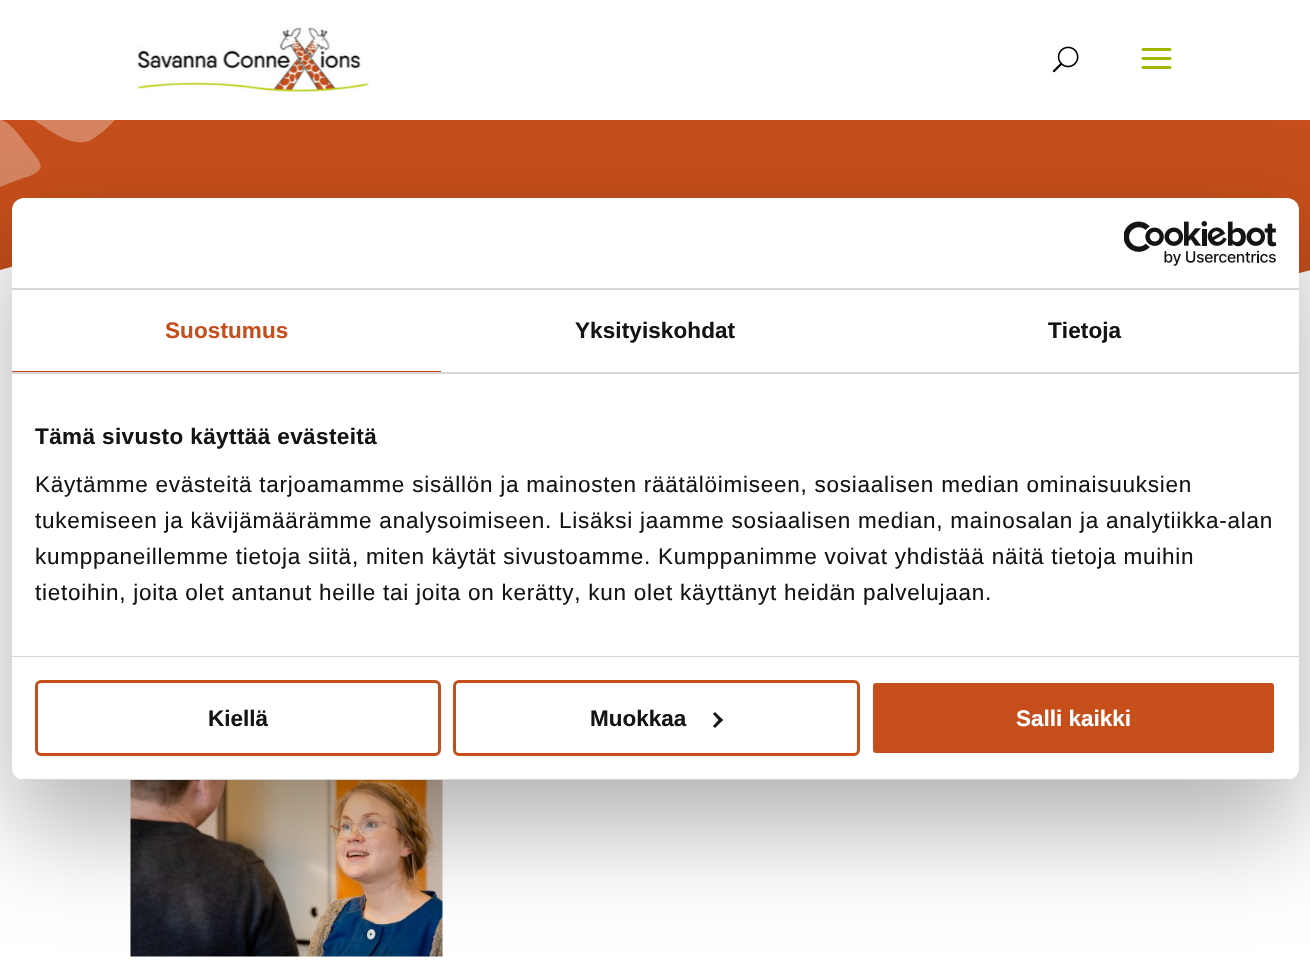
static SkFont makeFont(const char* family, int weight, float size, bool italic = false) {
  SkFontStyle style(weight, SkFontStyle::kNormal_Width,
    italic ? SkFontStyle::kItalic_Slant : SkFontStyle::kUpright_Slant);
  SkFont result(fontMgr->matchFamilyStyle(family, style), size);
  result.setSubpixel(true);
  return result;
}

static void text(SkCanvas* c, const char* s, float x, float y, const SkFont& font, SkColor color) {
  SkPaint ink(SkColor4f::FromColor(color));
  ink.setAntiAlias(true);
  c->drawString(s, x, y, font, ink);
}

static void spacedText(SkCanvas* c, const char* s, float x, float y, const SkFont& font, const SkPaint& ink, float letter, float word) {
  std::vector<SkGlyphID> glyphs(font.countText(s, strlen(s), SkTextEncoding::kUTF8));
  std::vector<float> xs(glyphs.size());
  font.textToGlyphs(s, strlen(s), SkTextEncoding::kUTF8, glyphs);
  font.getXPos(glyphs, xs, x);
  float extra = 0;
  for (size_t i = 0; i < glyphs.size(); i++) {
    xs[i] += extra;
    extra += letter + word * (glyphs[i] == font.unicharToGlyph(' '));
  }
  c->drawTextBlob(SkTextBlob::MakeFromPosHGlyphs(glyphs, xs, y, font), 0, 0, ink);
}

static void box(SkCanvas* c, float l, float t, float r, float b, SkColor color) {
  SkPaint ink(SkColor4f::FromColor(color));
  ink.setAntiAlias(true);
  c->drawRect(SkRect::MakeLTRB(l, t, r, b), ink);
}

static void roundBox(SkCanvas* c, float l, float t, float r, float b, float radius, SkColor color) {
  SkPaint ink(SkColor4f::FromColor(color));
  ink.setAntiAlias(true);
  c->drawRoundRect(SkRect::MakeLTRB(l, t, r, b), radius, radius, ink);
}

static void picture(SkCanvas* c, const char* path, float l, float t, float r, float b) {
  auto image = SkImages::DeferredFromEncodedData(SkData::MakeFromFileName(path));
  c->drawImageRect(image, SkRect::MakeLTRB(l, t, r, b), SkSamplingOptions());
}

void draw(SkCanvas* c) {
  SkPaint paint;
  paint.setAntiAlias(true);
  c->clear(0xffffffff);
  picture(c, "img_01.png", 136, 27, 370, 93);
  picture(c, "img_02.png", 1052, 46, 1079, 73);
  picture(c, "img_03.png", 1141, 48, 1172, 69);
  box(c, 0, 120, 1310, 195, 0xffc54e1b);
  picture(c, "img_04.png", 0, 120, 115, 187);
  paint.setColor(0xffc54e1b);
  c->drawPath(SkPathBuilder().moveTo(328, 225).cubicTo(164, 225, 82, 248, 0, 270).lineTo(0, 195).lineTo(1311, 195).lineTo(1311, 270).cubicTo(1229, 292, 1147, 315, 983, 315).cubicTo(656, 315, 656, 225, 328, 225).close().detach(), paint);
  picture(c, "img_05.png", 130, 780, 443, 957);
  paint.setColor(0x4d000000);
  paint.setMaskFilter(SkMaskFilter::MakeBlur(kNormal_SkBlurStyle, 51));
  c->drawRoundRect(SkRect::MakeLTRB(12, 246, 1299, 828), 12, 12, paint);
  paint.setMaskFilter(nullptr);
  roundBox(c, 12, 198, 1299, 780, 12, 0xffffffff);
  box(c, 12, 288, 1299, 290, 0xffd6d6d6);
  picture(c, "img_06.png", 1124, 221, 1277, 266);
  box(c, 12, 372, 1299, 374, 0xffd6d6d6);
  box(c, 12, 371, 441, 372, 0xffc54e1b);
  SkFont face1 = makeFont("Liberation Sans", 700, 22.5f);
  paint.setColor(0xffc54e1b);
  spacedText(c, "Suostumus", 165, 338, face1, paint, 0.1f, 0);
  paint.setColor(0xff141414);
  spacedText(c, "Yksityiskohdat", 575, 338, face1, paint, 0.1f, 0);
  spacedText(c, "Tietoja", 1048, 338, face1, paint, 0.1f, 0);
  box(c, 12, 656, 1299, 657, 0xffd6d6d6);
  spacedText(c, "Tämä sivusto käyttää evästeitä", 35, 444, face1, paint, 0.4f, 0);
  SkFont face2 = makeFont("Liberation Sans", 400, 22.5f);
  spacedText(c, "Käytämme evästeitä tarjoamamme sisällön ja mainosten räätälöimiseen, sosiaalisen median ominaisuuksien", 35, 492, face2, paint, 0.75f, 0);
  spacedText(c, "tukemiseen ja kävijämäärämme analysoimiseen. Lisäksi jaamme sosiaalisen median, mainosalan ja analytiikka-alan", 35, 528, face2, paint, 0.75f, 0);
  spacedText(c, "kumppaneillemme tietoja siitä, miten käytät sivustoamme. Kumppanimme voivat yhdistää näitä tietoja muihin", 35, 564, face2, paint, 0.75f, 0);
  spacedText(c, "tietoihin, joita olet antanut heille tai joita on kerätty, kun olet käyttänyt heidän palvelujaan.", 35, 600, face2, paint, 0.75f, 0);
  c->save();
  c->clipPath(SkPathBuilder().moveTo(24, 198).lineTo(1287, 198).cubicTo(1293.5f, 198, 1299, 203.5f, 1299, 210).lineTo(1299, 768).cubicTo(1299, 774.5f, 1293.5f, 780, 1287, 780).lineTo(24, 780).cubicTo(17.5f, 780, 12, 774.5f, 12, 768).lineTo(12, 210).cubicTo(12, 203.5f, 17.5f, 198, 24, 198).close().detach(), true);
  box(c, 12, 779, 1299, 780, 0xffd6d6d6);
  c->restore();
  paint.setStyle(SkPaint::kStroke_Style);
  paint.setStrokeWidth(3);
  paint.setColor(0xffc54e1b);
  c->drawRoundRect(SkRect::MakeLTRB(36.5f, 681.5f, 439.5f, 754.5f), 4.5f, 4.5f, paint);
  text(c, "Kiellä", 208, 726, face1, 0xff141414);
  c->drawRoundRect(SkRect::MakeLTRB(454.5f, 681.5f, 858.5f, 754.5f), 4.5f, 4.5f, paint);
  text(c, "Muokkaa", 590, 726, face1, 0xff141414);
  paint.setStyle(SkPaint::kFill_Style);
  paint.setColor(0xff141414);
  c->drawPath(SkPathBuilder().moveTo(715, 712).lineTo(723, 720).lineTo(720.5f, 722).lineTo(713, 714).close().detach(), paint);
  c->drawPath(SkPathBuilder().moveTo(720.5f, 718).lineTo(723, 720).lineTo(715, 728).lineTo(713, 726).close().detach(), paint);
  paint.setColor(0xffc54e1b);
  c->drawRoundRect(SkRect::MakeLTRB(871.5f, 681.5f, 1275.5f, 754.5f), 4.5f, 4.5f, paint);
  paint.setStyle(SkPaint::kStroke_Style);
  paint.setColor(0xffffffff);
  c->drawRoundRect(SkRect::MakeLTRB(871.5f, 681.5f, 1275.5f, 754.5f), 4.5f, 4.5f, paint);
  text(c, "Salli kaikki", 1016, 726, face1, 0xffffffff);
}
